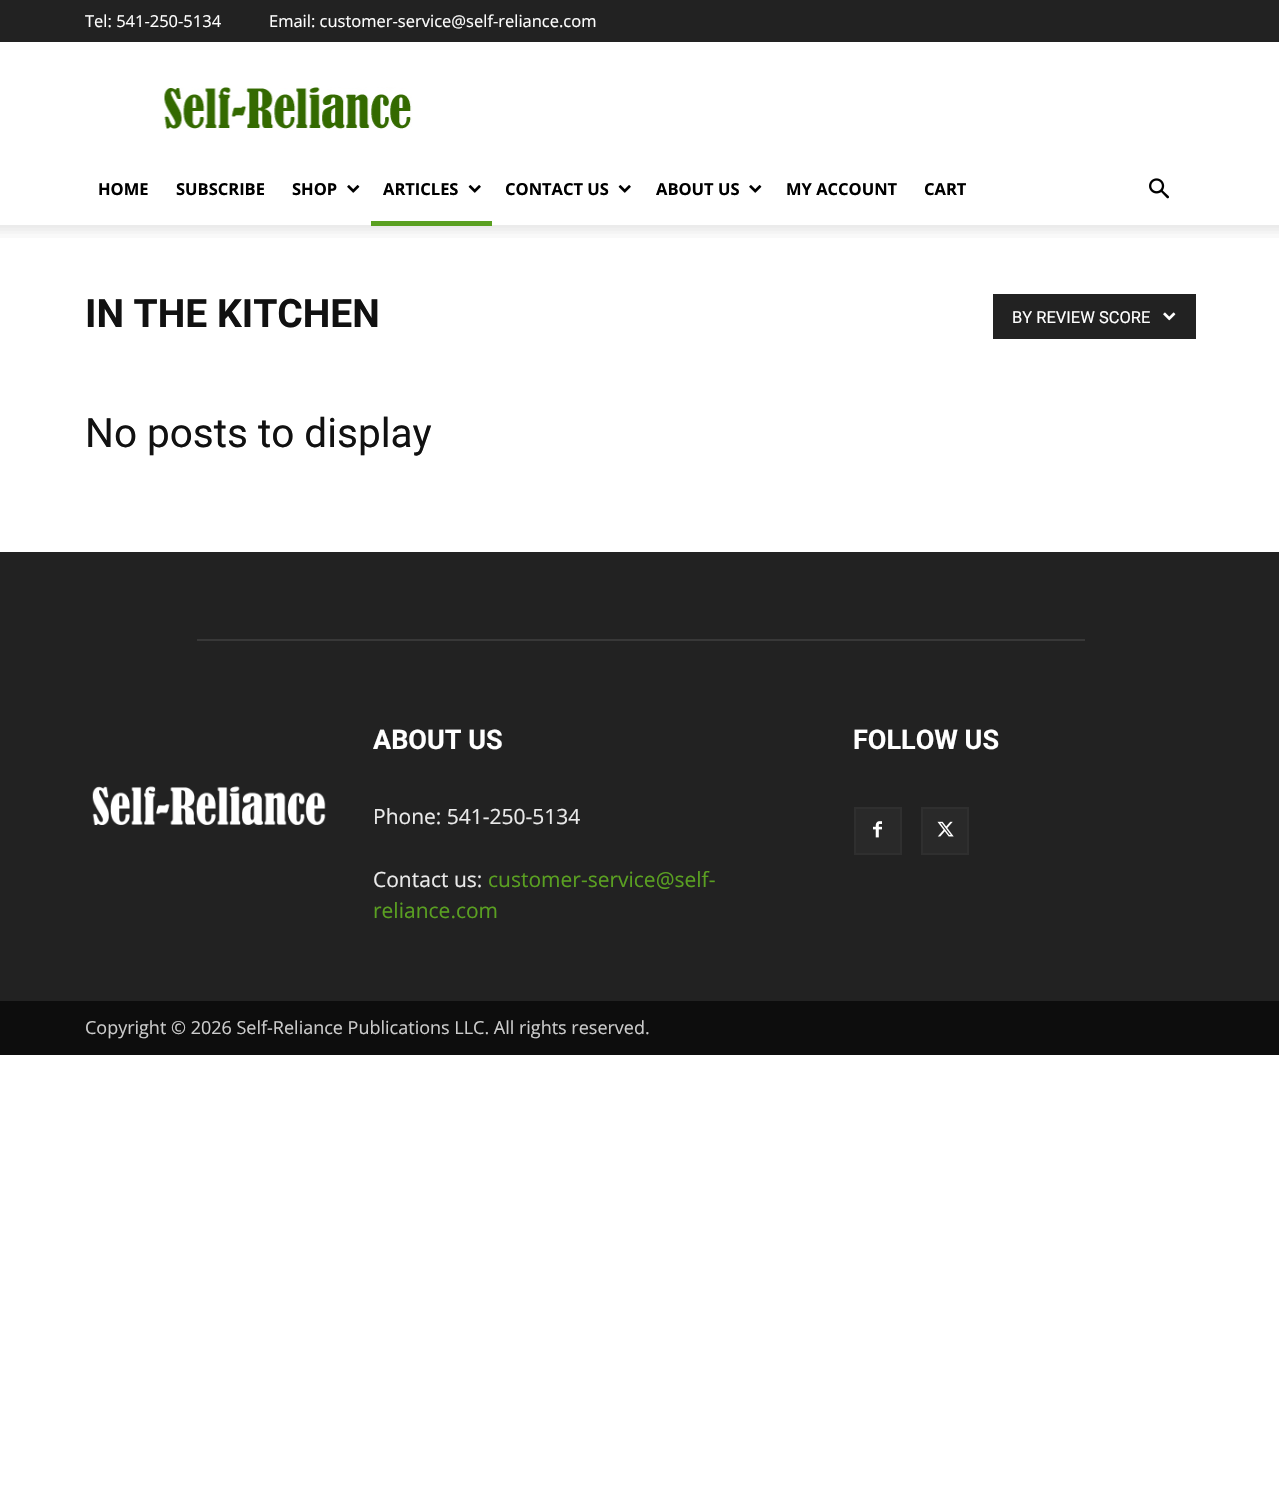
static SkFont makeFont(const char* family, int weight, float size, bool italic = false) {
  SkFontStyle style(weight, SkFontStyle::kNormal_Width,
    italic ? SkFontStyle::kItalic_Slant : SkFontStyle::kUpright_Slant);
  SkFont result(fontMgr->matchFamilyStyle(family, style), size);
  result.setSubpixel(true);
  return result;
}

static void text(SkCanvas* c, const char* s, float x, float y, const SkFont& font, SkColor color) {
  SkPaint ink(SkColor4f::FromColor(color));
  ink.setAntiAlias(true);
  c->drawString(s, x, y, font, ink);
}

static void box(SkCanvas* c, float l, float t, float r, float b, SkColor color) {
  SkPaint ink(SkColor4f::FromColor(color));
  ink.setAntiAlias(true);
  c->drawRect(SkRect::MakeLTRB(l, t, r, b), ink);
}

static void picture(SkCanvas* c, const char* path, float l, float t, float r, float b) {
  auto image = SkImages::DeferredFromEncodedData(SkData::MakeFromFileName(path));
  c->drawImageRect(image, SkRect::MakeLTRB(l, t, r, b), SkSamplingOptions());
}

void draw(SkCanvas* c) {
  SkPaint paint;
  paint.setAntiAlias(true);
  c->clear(0xffffffff);
  box(c, 0, 0, 1279, 42, 0xff222222);
  SkFont face1 = makeFont("Open Sans", 400, 16.5f);
  text(c, "Tel: 541-250-5134", 85, 27, face1, 0xffffffff);
  text(c, "Email: customer-service@self-reliance.com", 269, 27, face1, 0xffffffff);
  picture(c, "img_01.png", 164, 87, 412, 129);
  SkFont face2 = makeFont("Open Sans", 700, 16.5f);
  text(c, "HOME", 98, 195, face2, 0xff000000);
  text(c, "SUBSCRIBE", 176, 195, face2, 0xff000000);
  text(c, "SHOP", 292, 195, face2, 0xff000000);
  picture(c, "img_02.png", 347, 185, 360, 193);
  text(c, "ARTICLES", 383, 195, face2, 0xff000000);
  picture(c, "img_03.png", 468, 185, 481, 193);
  picture(c, "img_05.png", 0, 225, 1279, 238);
  box(c, 371, 221, 492, 226, 0xff5aa021);
  text(c, "CONTACT US", 505, 195, face2, 0xff000000);
  picture(c, "img_03.png", 618, 185, 631, 193);
  text(c, "ABOUT US", 656, 195, face2, 0xff000000);
  picture(c, "img_02.png", 749, 185, 762, 193);
  text(c, "MY ACCOUNT", 786, 195, face2, 0xff000000);
  text(c, "CART", 924, 195, face2, 0xff000000);
  picture(c, "img_04.png", 1149, 178, 1169, 199);
  SkFont face3 = makeFont("Roboto", 700, 39);
  text(c, "IN THE KITCHEN", 85, 327, face3, 0xff111111);
  box(c, 993, 294, 1196, 339, 0xff222222);
  SkFont face4 = makeFont("Roboto", 400, 16.5f);
  text(c, "BY REVIEW SCORE", 1012, 323, face4, 0xffffffff);
  picture(c, "img_06.png", 1163, 312, 1176, 321);
  SkFont face5 = makeFont("Roboto", 400, 40.5f);
  text(c, "No posts to display", 85, 447, face5, 0xff111111);
  box(c, 0, 552, 1279, 1001, 0xff222222);
  box(c, 197, 639, 1085, 641, 0xff383838);
  SkFont face6 = makeFont("Roboto", 700, 27);
  text(c, "ABOUT US", 373, 749, face6, 0xffffffff);
  SkFont face7 = makeFont("Open Sans", 400, 21);
  text(c, "Phone: 541-250-5134", 373, 824, face7, 0xffeaeaea);
  text(c, "Contact us:", 373, 887, face7, 0xffeaeaea);
  text(c, "customer-service@self-", 488, 887, face7, 0xff5aa021);
  text(c, "reliance.com", 373, 918, face7, 0xff5aa021);
  text(c, "FOLLOW US", 853, 749, face6, 0xffffffff);
  box(c, 856, 809, 900, 853, 0xff292929);
  picture(c, "img_07.png", 873, 821, 882, 838);
  paint.setStyle(SkPaint::kStroke_Style);
  paint.setStrokeWidth(2);
  paint.setColor(0xff2f2f2f);
  c->drawRect(SkRect::MakeLTRB(855, 808, 901, 854), paint);
  box(c, 923, 809, 967, 853, 0xff292929);
  picture(c, "img_08.png", 937, 821, 954, 837);
  c->drawRect(SkRect::MakeLTRB(922, 808, 968, 854), paint);
  picture(c, "img_09.png", 92, 786, 326, 825);
  box(c, 0, 1001, 1279, 1055, 0xff0d0d0d);
  SkFont face8 = makeFont("Open Sans", 400, 18);
  text(c, "Copyright © 2026 Self-Reliance Publications LLC. All rights reserved.", 85, 1034, face8, 0xffcccccc);
}
